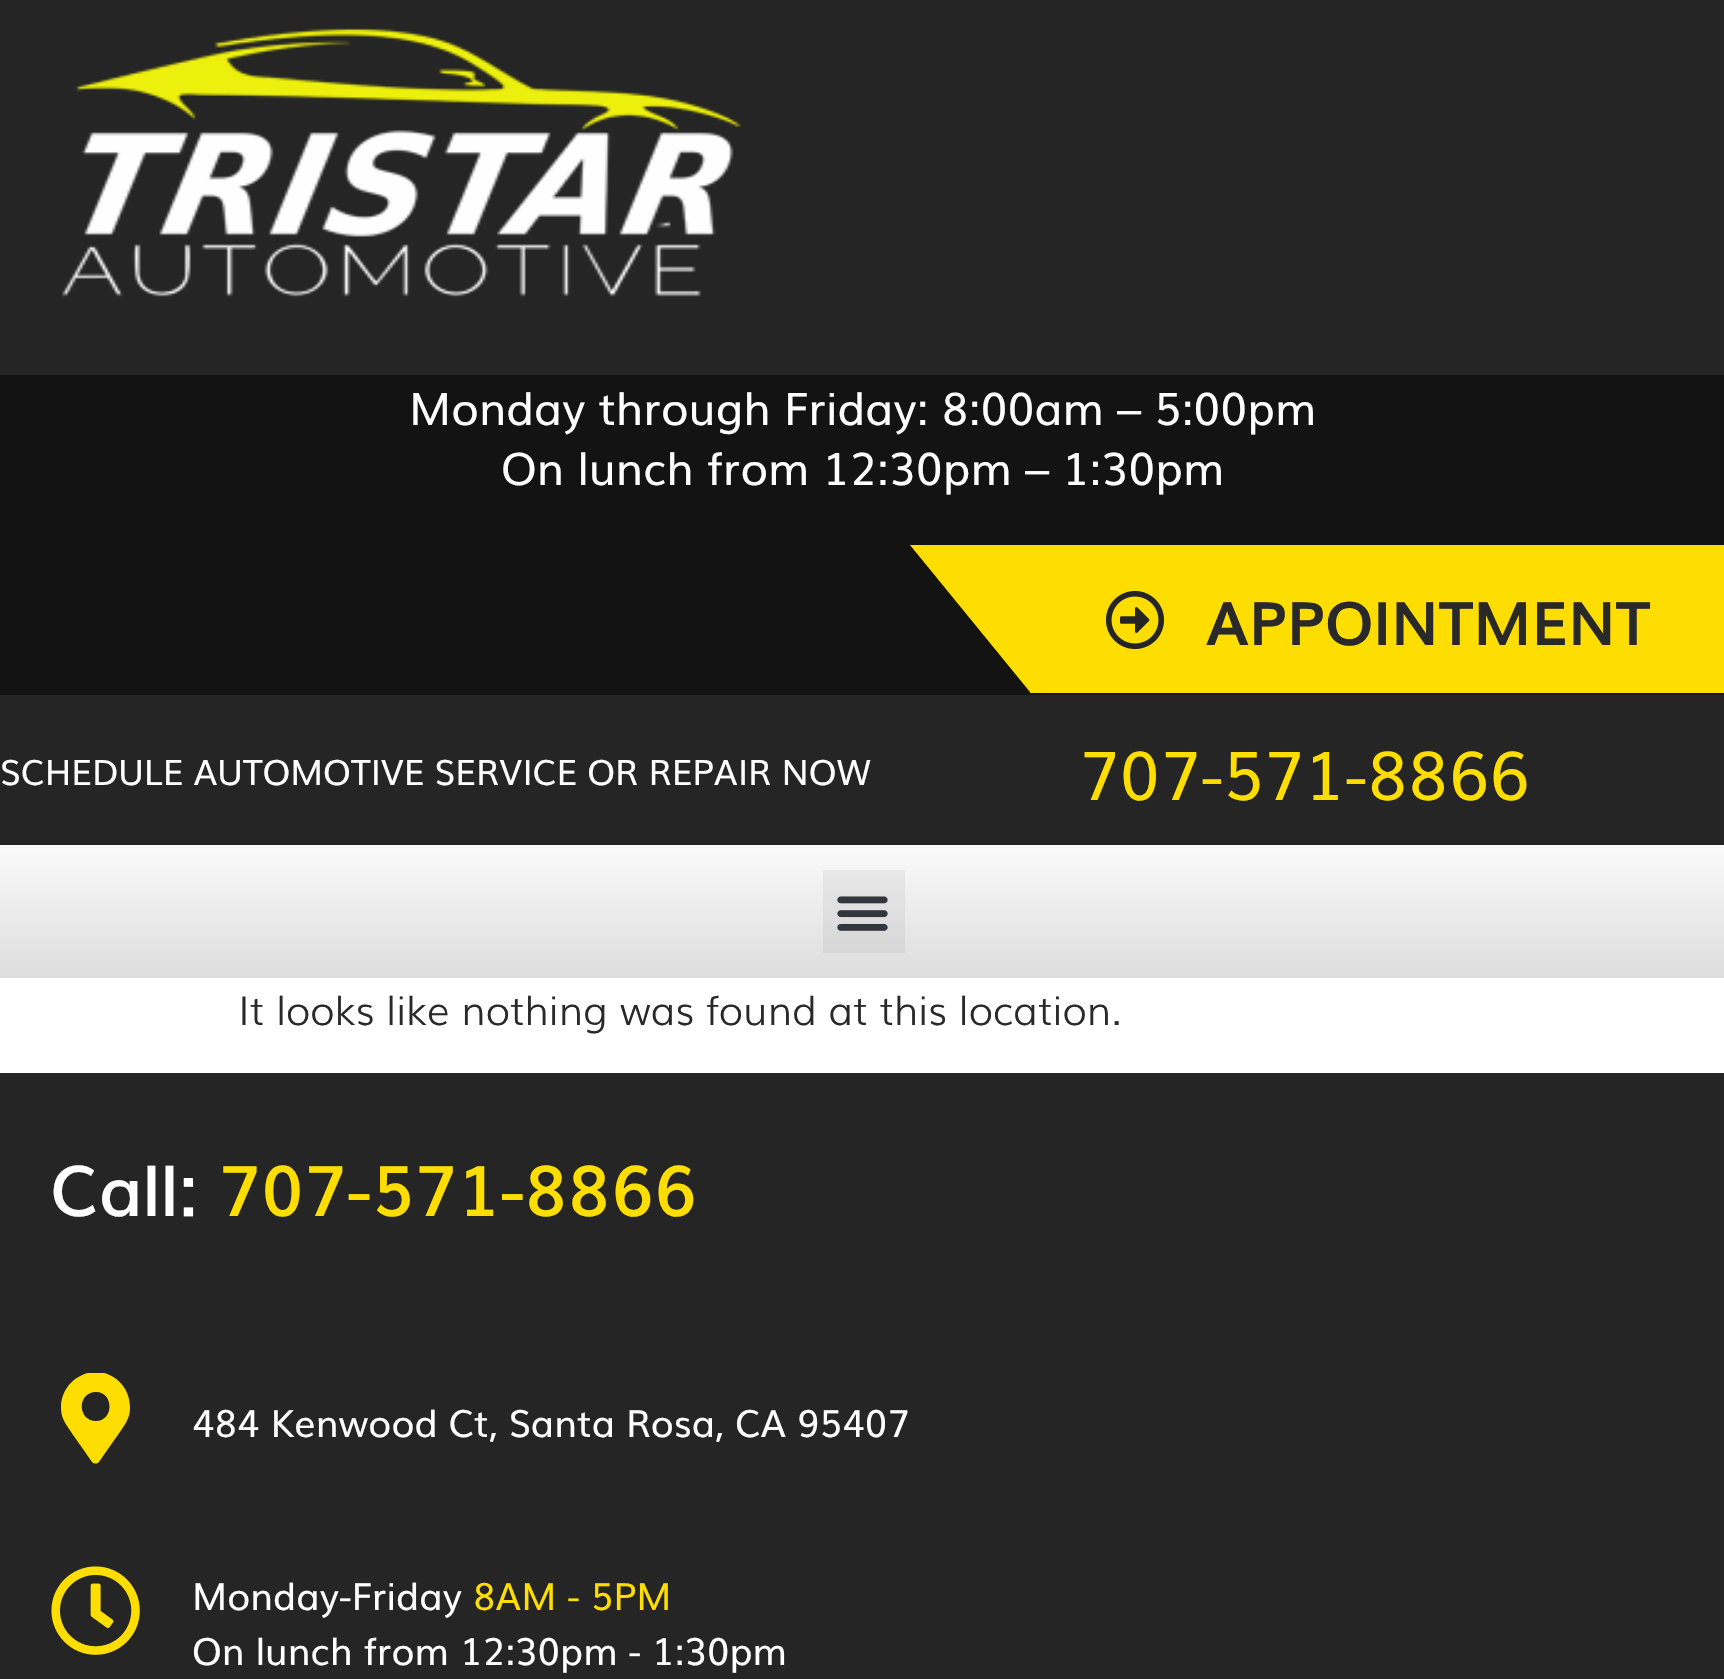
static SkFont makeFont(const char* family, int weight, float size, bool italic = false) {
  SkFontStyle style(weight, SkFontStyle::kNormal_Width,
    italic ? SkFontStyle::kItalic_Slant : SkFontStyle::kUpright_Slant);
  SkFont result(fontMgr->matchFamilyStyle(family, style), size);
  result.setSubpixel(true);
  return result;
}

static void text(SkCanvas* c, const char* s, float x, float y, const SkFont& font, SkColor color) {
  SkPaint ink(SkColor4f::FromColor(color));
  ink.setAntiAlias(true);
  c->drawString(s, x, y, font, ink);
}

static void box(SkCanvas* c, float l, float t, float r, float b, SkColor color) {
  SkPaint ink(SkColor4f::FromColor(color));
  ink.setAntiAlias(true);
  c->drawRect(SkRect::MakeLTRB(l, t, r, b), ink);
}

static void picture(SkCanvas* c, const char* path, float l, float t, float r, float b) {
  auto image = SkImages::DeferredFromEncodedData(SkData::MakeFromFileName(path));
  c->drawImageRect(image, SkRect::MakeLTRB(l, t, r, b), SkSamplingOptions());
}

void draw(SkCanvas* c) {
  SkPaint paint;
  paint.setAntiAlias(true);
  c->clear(0xffffffff);
  box(c, 0, 0, 1724, 845, 0xff252525);
  picture(c, "img_01.png", 62, 28, 741, 297);
  box(c, 0, 375, 1724, 695, 0xff131313);
  SkFont face1 = makeFont("Muli", 400, 45);
  text(c, "Monday through Friday: 8:00am – 5:00pm", 409, 425, face1, 0xffffffff);
  text(c, "On lunch from 12:30pm – 1:30pm", 501, 485, face1, 0xffffffff);
  box(c, 1030, 545, 1724, 693, 0xfffede00);
  paint.setColor(0xfffede00);
  c->drawPath(SkPathBuilder().moveTo(1030, 545).lineTo(1030, 692).lineTo(910, 545).close().detach(), paint);
  picture(c, "img_02.png", 1105, 590, 1165, 650);
  SkFont face2 = makeFont("Muli", 700, 60);
  text(c, "APPOINTMENT", 1206, 645, face2, 0xff292929);
  SkFont face3 = makeFont("Muli", 400, 35);
  text(c, "SCHEDULE AUTOMOTIVE SERVICE OR REPAIR NOW", 0, 785, face3, 0xffffffff);
  SkFont face4 = makeFont("Muli", 400, 67.5f);
  text(c, "707-571-8866", 1079, 800, face4, 0xfffede00);
  {
    const SkColor colors[] = {0xfffafafa, 0xffdddddd};
    const float stops[] = {0, 1};
    const SkPoint ends[] = {{863, 845}, {863, 978}};
    paint.setShader(SkGradientShader::MakeLinear(ends, colors, stops, 2, SkTileMode::kClamp));
    paint.setAlpha(255);
  }
  c->drawRect(SkRect::MakeLTRB(0, 845, 1724, 978), paint);
  box(c, 823, 870, 905, 953, 0x0d000000);
  picture(c, "img_03.png", 837, 896, 888, 931);
  SkFont face5 = makeFont("Muli", 300, 40);
  text(c, "It looks like nothing was found at this location.", 238, 1025, face5, 0xff292929);
  box(c, 0, 1073, 1724, 1679, 0xff252525);
  SkFont face6 = makeFont("Muli", 600, 70);
  text(c, "Call:", 50, 1216, face6, 0xffffffff);
  text(c, "707-571-8866", 218, 1216, face6, 0xfffede00);
  c->save();
  c->clipRect(SkRect::MakeLTRB(50, 1373, 143, 1465));
  paint.setShader(nullptr);
  paint.setColor(0xfffede00);
  c->drawPath(SkPathBuilder().moveTo(92, 1462).cubicTo(66, 1424, 61, 1421, 61, 1407).cubicTo(61, 1388, 77, 1372, 96, 1372).cubicTo(115, 1372, 130, 1388, 130, 1407).cubicTo(130, 1421, 125, 1424, 99, 1462).cubicTo(97, 1464, 94, 1464, 92, 1462).close().moveTo(96, 1421).cubicTo(114, 1421, 114, 1392, 96, 1392).cubicTo(77, 1392, 77, 1421, 96, 1421).close().detach(), paint);
  c->restore();
  SkFont face7 = makeFont("Muli", 400, 37.5f);
  text(c, "484 Kenwood Ct, Santa Rosa, CA 95407", 192, 1437, face7, 0xffffffff);
  picture(c, "img_04.png", 51, 1566, 140, 1655);
  text(c, "Monday-Friday", 192, 1610, face7, 0xffffffff);
  text(c, "8AM - 5PM", 473, 1610, face7, 0xfffede00);
  text(c, "On lunch from 12:30pm - 1:30pm", 192, 1665, face7, 0xffffffff);
}
